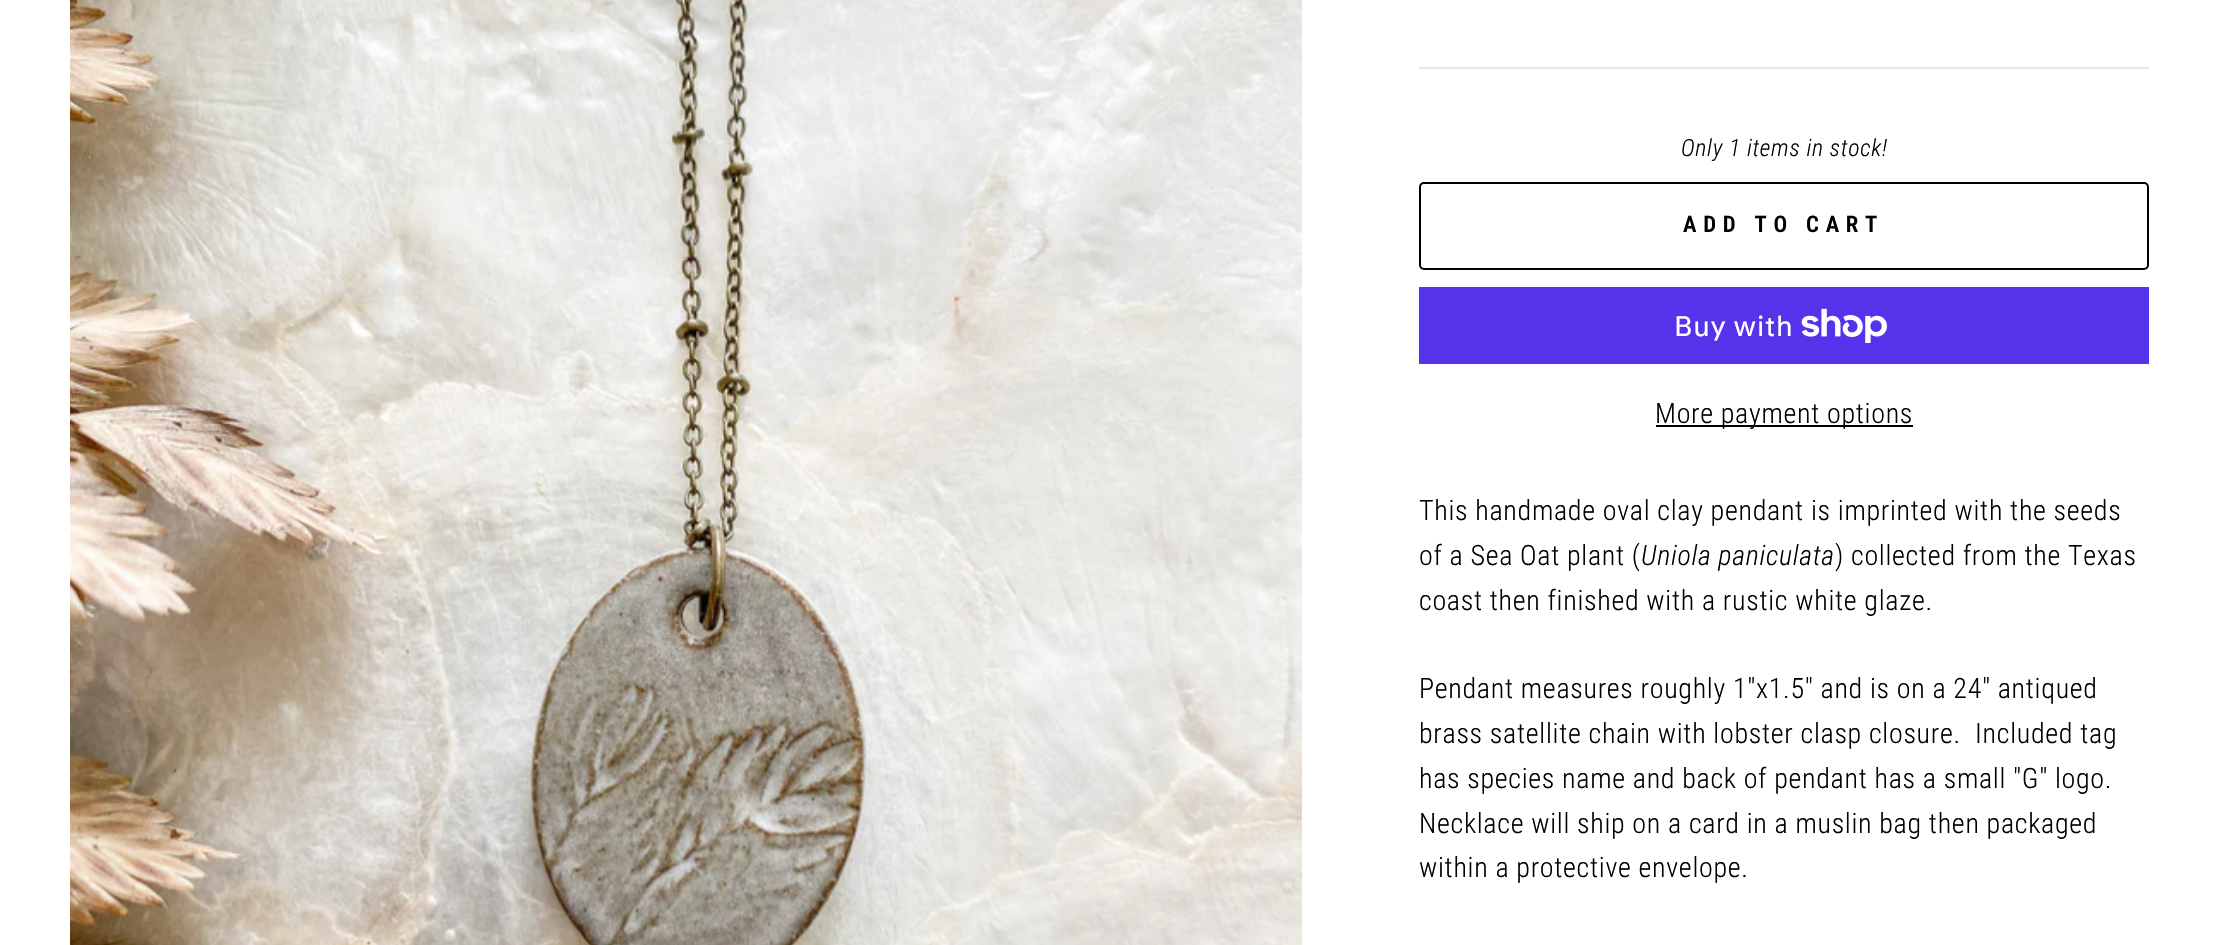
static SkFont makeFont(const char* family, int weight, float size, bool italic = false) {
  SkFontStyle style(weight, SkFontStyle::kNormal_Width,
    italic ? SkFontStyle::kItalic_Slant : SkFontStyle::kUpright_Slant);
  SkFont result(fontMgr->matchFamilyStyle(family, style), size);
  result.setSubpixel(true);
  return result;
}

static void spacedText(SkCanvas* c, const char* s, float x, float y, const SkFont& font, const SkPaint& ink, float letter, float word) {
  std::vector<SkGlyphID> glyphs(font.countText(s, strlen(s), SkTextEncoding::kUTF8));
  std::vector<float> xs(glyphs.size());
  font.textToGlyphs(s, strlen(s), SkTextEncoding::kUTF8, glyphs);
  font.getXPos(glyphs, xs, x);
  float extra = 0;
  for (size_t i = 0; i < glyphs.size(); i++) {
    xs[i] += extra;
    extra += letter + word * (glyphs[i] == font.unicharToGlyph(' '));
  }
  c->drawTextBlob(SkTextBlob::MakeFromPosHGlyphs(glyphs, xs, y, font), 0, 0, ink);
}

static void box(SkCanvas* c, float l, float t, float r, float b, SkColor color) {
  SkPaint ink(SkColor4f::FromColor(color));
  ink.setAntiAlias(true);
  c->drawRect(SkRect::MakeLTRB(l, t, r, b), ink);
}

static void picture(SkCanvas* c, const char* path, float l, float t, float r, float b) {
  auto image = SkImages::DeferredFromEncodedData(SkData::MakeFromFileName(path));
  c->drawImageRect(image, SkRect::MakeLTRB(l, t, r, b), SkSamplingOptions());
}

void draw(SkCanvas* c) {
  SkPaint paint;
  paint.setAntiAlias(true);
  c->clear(0xffffffff);
  picture(c, "img_01.png", 70, 0, 1302, 945);
  box(c, 1419, 67, 2149, 69, 0xffe8e8e1);
  SkFont face1 = makeFont("Roboto Condensed", 300, 23.75f, true);
  paint.setColor(0xff000000);
  spacedText(c, "Only 1 items in stock!", 1681, 156, face1, paint, 0.7f, 0);
  paint.setStyle(SkPaint::kStroke_Style);
  paint.setStrokeWidth(2);
  c->drawRoundRect(SkRect::MakeLTRB(1420, 183, 2148, 269), 4, 4, paint);
  SkFont face2 = makeFont("Roboto Condensed", 600, 22.75f);
  paint.setStyle(SkPaint::kFill_Style);
  spacedText(c, "ADD TO CART", 1683, 232, face2, paint, 6.75f, 0);
  box(c, 1419, 287, 2149, 364, 0xff5433eb);
  SkFont face3 = makeFont("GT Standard", 400, 28);
  paint.setColor(0xffffffff);
  spacedText(c, "Buy with", 1674, 336, face3, paint, 0.7f, 0);
  picture(c, "img_02.png", 1801, 308, 1887, 343);
  box(c, 1656, 425, 1913, 427, 0xff000000);
  SkFont face4 = makeFont("Roboto Condensed", 300, 28);
  paint.setColor(0xff000000);
  spacedText(c, "More payment options", 1655, 423, face4, paint, 0.7f, 0);
  spacedText(c, "This handmade oval clay pendant is imprinted with the seeds", 1419, 520, face4, paint, 0.7f, 0);
  spacedText(c, "of a Sea Oat plant (", 1419, 565, face4, paint, 0.7f, 0);
  SkFont face5 = makeFont("Roboto Condensed", 300, 28, true);
  spacedText(c, "Uniola paniculata", 1641, 565, face5, paint, 0.7f, 0);
  spacedText(c, ") collected from the Texas", 1835, 565, face4, paint, 0.7f, 0);
  spacedText(c, "coast then finished with a rustic white glaze.", 1419, 610, face4, paint, 0.7f, 0);
  spacedText(c, "Pendant measures roughly 1\"x1.5\" and is on a 24\" antiqued", 1419, 698, face4, paint, 0.7f, 0);
  spacedText(c, "brass satellite chain with lobster clasp closure.", 1419, 743, face4, paint, 0.7f, 0);
  spacedText(c, "Included tag", 1975, 743, face4, paint, 0.7f, 0);
  spacedText(c, "has species name and back of pendant has a small \"G\" logo.", 1419, 788, face4, paint, 0.7f, 0);
  spacedText(c, "Necklace will ship on a card in a muslin bag then packaged", 1419, 833, face4, paint, 0.7f, 0);
  spacedText(c, "within a protective envelope.", 1419, 877, face4, paint, 0.7f, 0);
}
